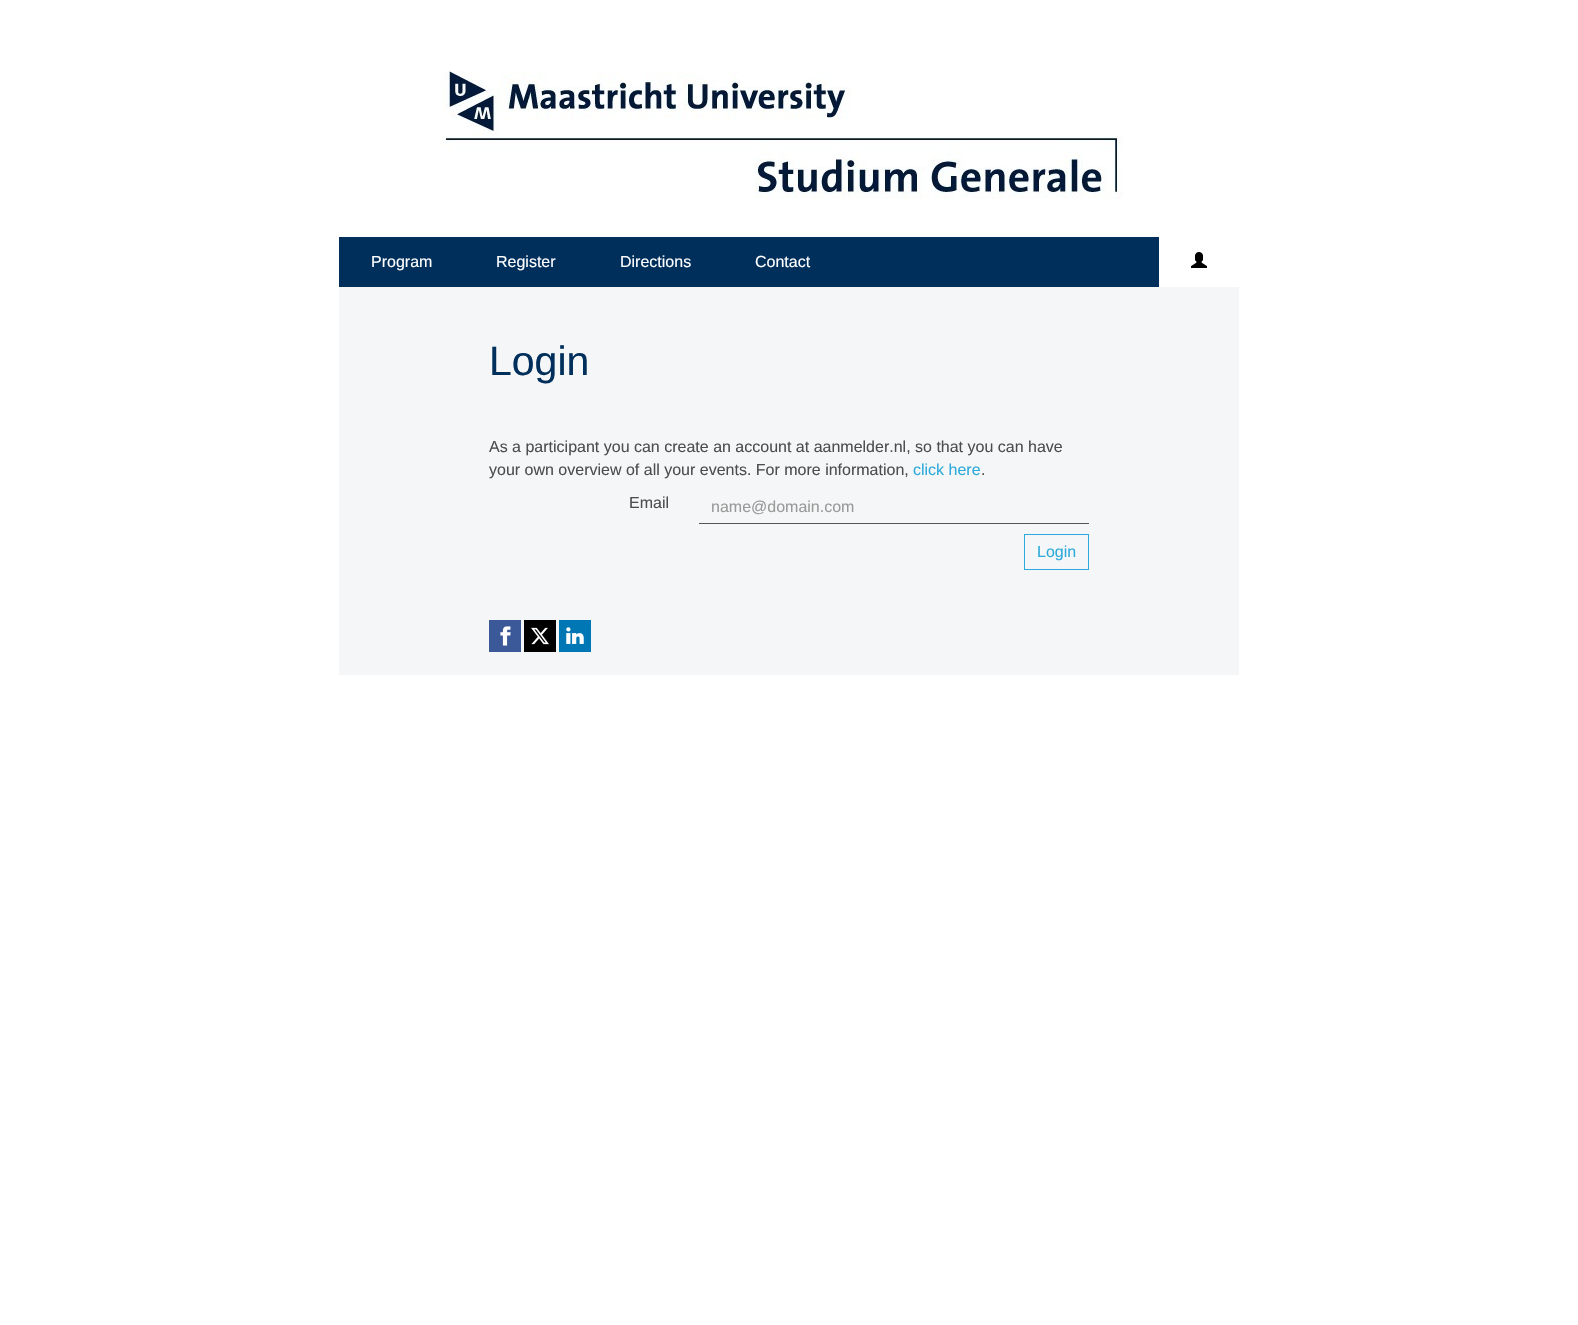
static SkFont makeFont(const char* family, int weight, float size, bool italic = false) {
  SkFontStyle style(weight, SkFontStyle::kNormal_Width,
    italic ? SkFontStyle::kItalic_Slant : SkFontStyle::kUpright_Slant);
  SkFont result(fontMgr->matchFamilyStyle(family, style), size);
  result.setSubpixel(true);
  return result;
}

static void text(SkCanvas* c, const char* s, float x, float y, const SkFont& font, SkColor color) {
  SkPaint ink(SkColor4f::FromColor(color));
  ink.setAntiAlias(true);
  c->drawString(s, x, y, font, ink);
}

static void box(SkCanvas* c, float l, float t, float r, float b, SkColor color) {
  SkPaint ink(SkColor4f::FromColor(color));
  ink.setAntiAlias(true);
  c->drawRect(SkRect::MakeLTRB(l, t, r, b), ink);
}

static void picture(SkCanvas* c, const char* path, float l, float t, float r, float b) {
  auto image = SkImages::DeferredFromEncodedData(SkData::MakeFromFileName(path));
  c->drawImageRect(image, SkRect::MakeLTRB(l, t, r, b), SkSamplingOptions());
}

void draw(SkCanvas* c) {
  SkPaint paint;
  paint.setAntiAlias(true);
  c->clear(0xffffffff);
  picture(c, "img_01.png", 439, 71, 1123, 199);
  box(c, 339, 237, 1159, 287, 0xff002f5c);
  SkFont face1 = makeFont("Liberation Sans", 400, 16);
  text(c, "Program", 371, 267, face1, 0xffffffff);
  text(c, "Register", 496, 267, face1, 0xffffffff);
  text(c, "Directions", 620, 267, face1, 0xffffffff);
  text(c, "Contact", 755, 267, face1, 0xffffffff);
  picture(c, "img_02.png", 1191, 252, 1207, 268);
  box(c, 339, 287, 1239, 675, 0xfff5f6f7);
  SkFont face2 = makeFont("Liberation Sans", 400, 41);
  text(c, "Login", 489, 375, face2, 0xff002f5c);
  text(c, "As a participant you can create an account at aanmelder.nl, so that you can have", 489, 452, face1, 0xff4d4d4d);
  text(c, "your own overview of all your events. For more information,", 489, 475, face1, 0xff4d4d4d);
  text(c, "click here", 913, 475, face1, 0xff2caadb);
  text(c, ".", 981, 475, face1, 0xff4d4d4d);
  text(c, "Email", 629, 508, face1, 0xff4d4d4d);
  box(c, 699, 523, 1089, 524, 0xff555555);
  text(c, "name@domain.com", 711, 512, face1, 0xff999999);
  paint.setStyle(SkPaint::kStroke_Style);
  paint.setStrokeWidth(1);
  paint.setColor(0xff2caadb);
  c->drawRect(SkRect::MakeLTRB(1024.5f, 534.5f, 1088.5f, 569.5f), paint);
  text(c, "Login", 1037, 557, face1, 0xff2caadb);
  box(c, 489, 620, 521, 652, 0xff3b5998);
  picture(c, "img_03.png", 500, 626, 511, 646);
  box(c, 524, 620, 556, 652, 0xff000000);
  picture(c, "img_04.png", 531, 627, 549, 645);
  box(c, 559, 620, 591, 652, 0xff0077b5);
  picture(c, "img_05.png", 566, 627, 584, 644);
}
